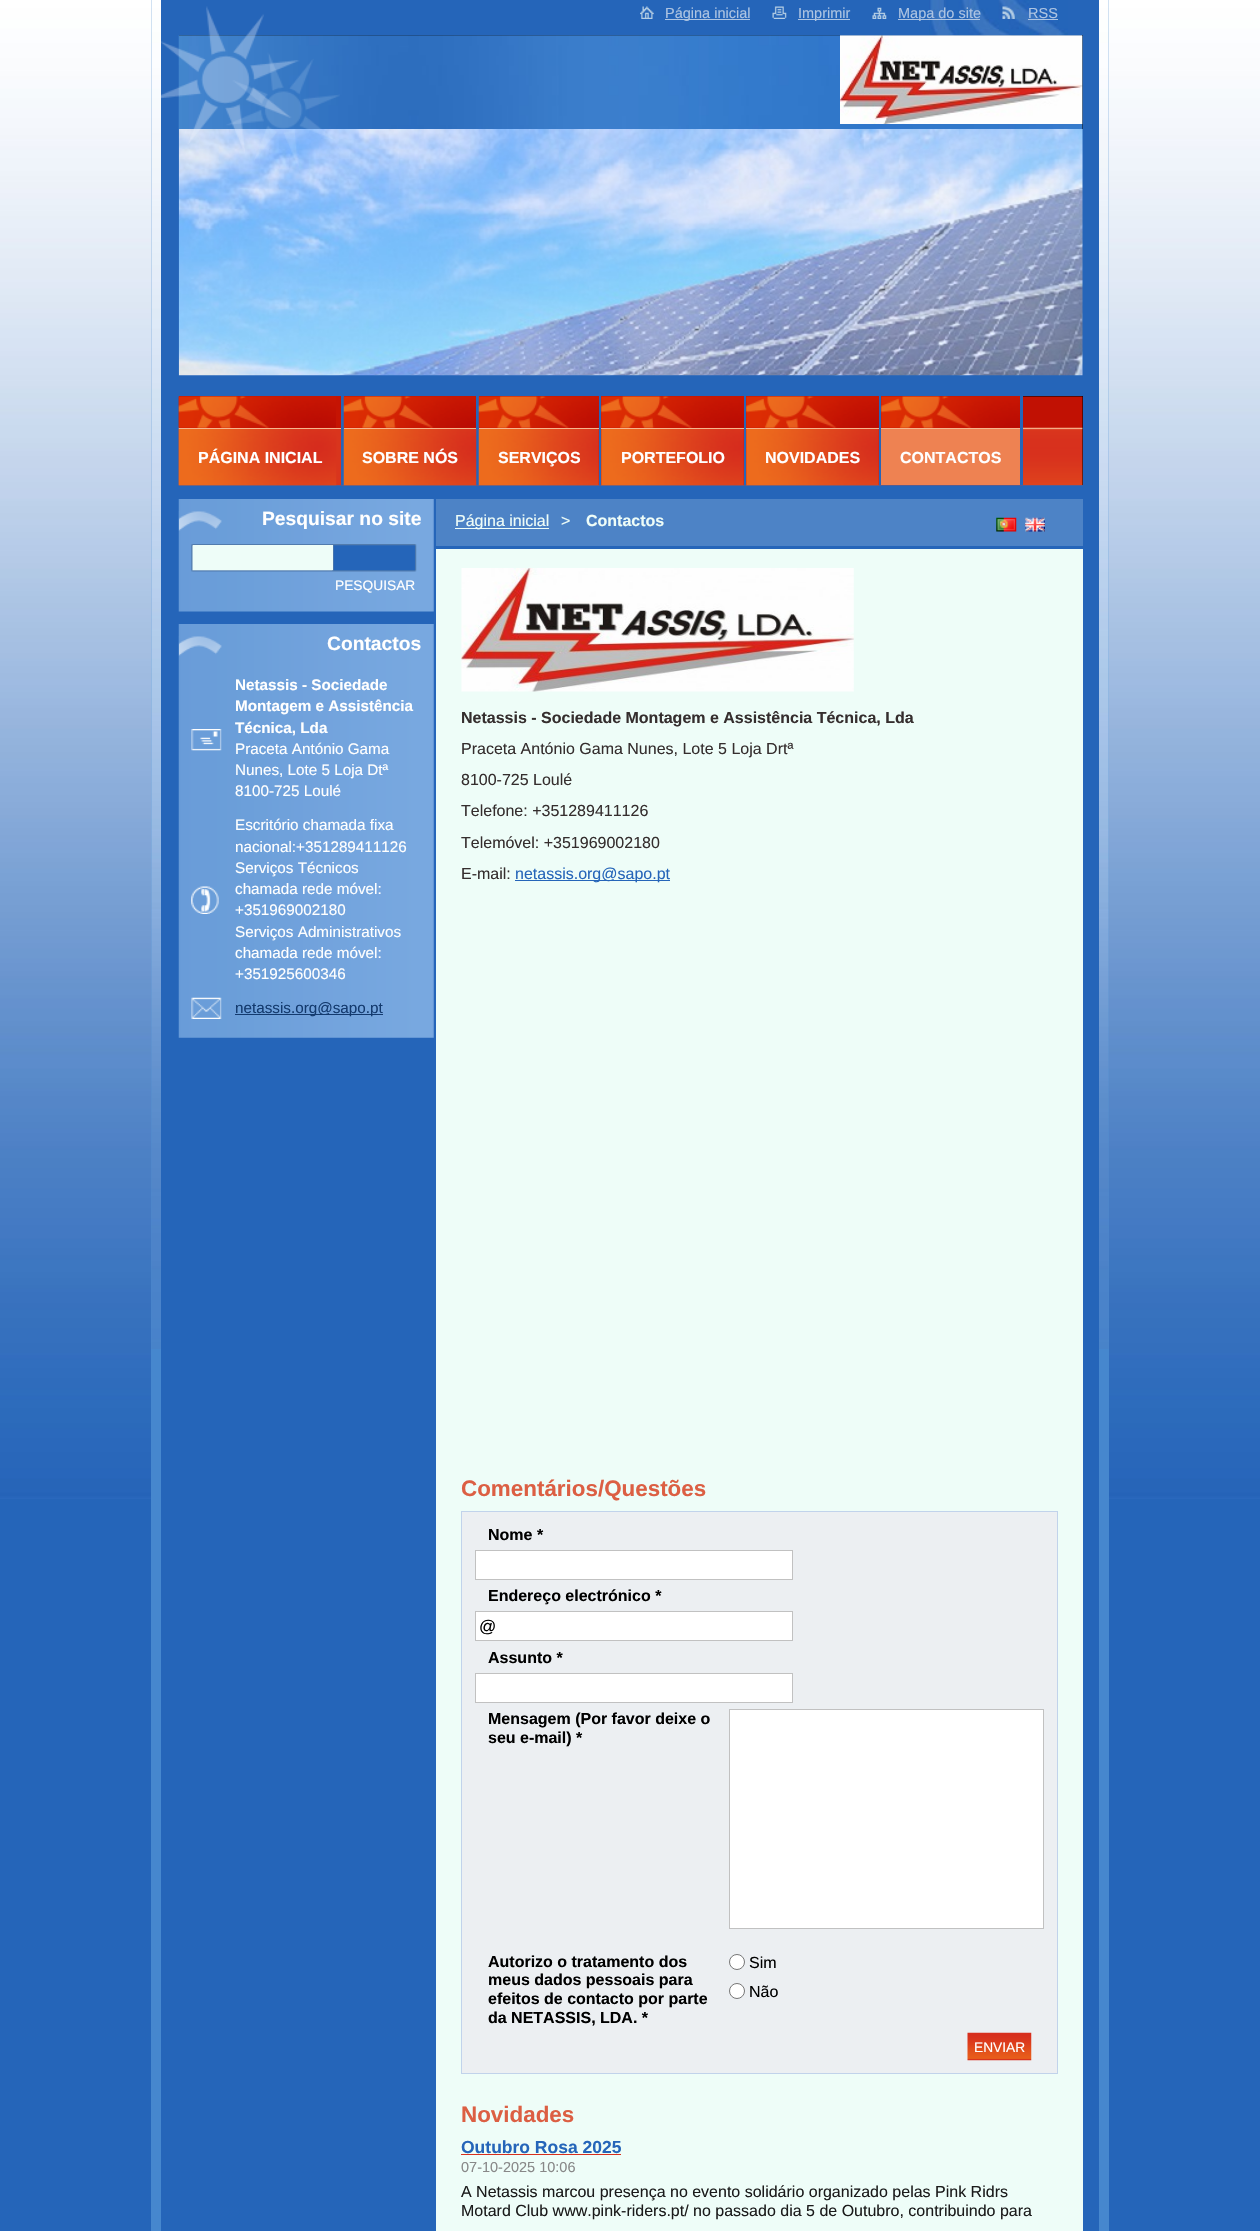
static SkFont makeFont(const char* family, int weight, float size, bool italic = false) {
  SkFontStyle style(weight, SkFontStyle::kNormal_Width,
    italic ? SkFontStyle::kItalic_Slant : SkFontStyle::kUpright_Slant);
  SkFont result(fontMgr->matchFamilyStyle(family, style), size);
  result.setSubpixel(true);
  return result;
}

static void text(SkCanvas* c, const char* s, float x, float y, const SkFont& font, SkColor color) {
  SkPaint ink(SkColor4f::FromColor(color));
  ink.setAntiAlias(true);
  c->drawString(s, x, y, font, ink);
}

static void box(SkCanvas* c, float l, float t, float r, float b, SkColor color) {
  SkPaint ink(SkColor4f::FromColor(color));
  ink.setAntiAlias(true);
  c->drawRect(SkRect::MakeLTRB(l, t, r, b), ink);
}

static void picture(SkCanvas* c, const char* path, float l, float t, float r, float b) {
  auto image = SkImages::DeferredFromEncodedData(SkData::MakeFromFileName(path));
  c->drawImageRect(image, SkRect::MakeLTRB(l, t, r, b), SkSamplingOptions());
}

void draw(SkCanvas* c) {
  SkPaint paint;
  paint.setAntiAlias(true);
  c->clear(0xff2565b9);
  picture(c, "img_01.png", 0, 0, 1260, 1499);
  box(c, 151, 0, 1109, 2231, 0xff4687ce);
  picture(c, "img_02.png", 151, 0, 1109, 1349);
  box(c, 161, 0, 1099, 2231, 0xff2565b9);
  picture(c, "img_03.png", 929, 0, 1068, 35);
  box(c, 179, 35, 1083, 129, 0xff000000);
  picture(c, "img_09.png", 178, 35, 1083, 129);
  picture(c, "img_11.png", 178, 129, 1083, 376);
  picture(c, "img_04.png", 161, 6, 340, 166);
  picture(c, "img_05.png", 640, 6, 654, 19);
  box(c, 665, 19, 750, 20, 0xffadc4e2);
  SkFont face1 = makeFont("Liberation Sans", 400, 14.5f);
  text(c, "Página inicial", 665, 18, face1, 0xffadc4e2);
  picture(c, "img_06.png", 772, 6, 787, 19);
  box(c, 798, 19, 850, 20, 0xffadc4e2);
  text(c, "Imprimir", 798, 18, face1, 0xffadc4e2);
  picture(c, "img_07.png", 872, 7, 887, 19);
  box(c, 898, 19, 980, 20, 0xffadc4e2);
  text(c, "Mapa do site", 898, 18, face1, 0xffadc4e2);
  picture(c, "img_08.png", 1002, 6, 1015, 19);
  text(c, "RSS", 1028, 18, face1, 0xffadc4e2);
  box(c, 1028, 19, 1058, 20, 0xffadc4e2);
  picture(c, "img_10.png", 840, 35, 1083, 124);
  box(c, 1023, 396, 1083, 485, 0xff000000);
  picture(c, "img_12.png", 178, 396, 1083, 486);
  box(c, 179, 396, 341, 428, 0xffc51403);
  picture(c, "img_13.png", 178, 396, 336, 428);
  box(c, 341, 396, 344, 485, 0xff2565b9);
  box(c, 336, 429, 341, 485, 0xffd9351d);
  picture(c, "img_14.png", 178, 429, 337, 486);
  box(c, 179, 428, 341, 429, 0xfff6b58e);
  SkFont face2 = makeFont("Liberation Sans", 700, 16);
  text(c, "PÁGINA INICIAL", 198, 463, face2, 0xffffffff);
  box(c, 344, 396, 476, 428, 0xffc51403);
  picture(c, "img_15.png", 343, 396, 476, 428);
  box(c, 476, 396, 479, 485, 0xff2565b9);
  picture(c, "img_16.png", 343, 429, 477, 486);
  box(c, 344, 428, 476, 429, 0xfff6b58e);
  text(c, "SOBRE NÓS", 362, 463, face2, 0xffffffff);
  box(c, 479, 396, 599, 485, 0xffc51403);
  picture(c, "img_17.png", 478, 396, 599, 428);
  box(c, 599, 396, 601, 485, 0xff2565b9);
  picture(c, "img_18.png", 478, 429, 599, 486);
  box(c, 479, 428, 599, 429, 0xfff6b58e);
  text(c, "SERVIÇOS", 498, 463, face2, 0xffffffff);
  box(c, 601, 396, 744, 485, 0xffc51403);
  picture(c, "img_19.png", 601, 396, 744, 428);
  box(c, 744, 396, 746, 485, 0xff2565b9);
  picture(c, "img_20.png", 601, 429, 744, 486);
  box(c, 601, 428, 744, 429, 0xfff6b58e);
  text(c, "PORTEFOLIO", 621, 463, face2, 0xffffffff);
  box(c, 746, 396, 879, 485, 0xffc51403);
  picture(c, "img_21.png", 746, 396, 879, 428);
  box(c, 879, 396, 881, 485, 0xff2565b9);
  picture(c, "img_22.png", 746, 429, 879, 486);
  box(c, 746, 428, 879, 429, 0xfff6b58e);
  text(c, "NOVIDADES", 765, 463, face2, 0xffffffff);
  box(c, 881, 396, 1020, 428, 0xffc51403);
  picture(c, "img_23.png", 881, 396, 1020, 428);
  box(c, 1020, 396, 1023, 485, 0xff2565b9);
  box(c, 881, 429, 1020, 485, 0xffee8252);
  box(c, 881, 428, 1020, 429, 0xfff6b58e);
  text(c, "CONTACTOS", 900, 463, face2, 0xffffffff);
  picture(c, "img_24.png", 178, 499, 434, 612);
  picture(c, "img_25.png", 178, 511, 222, 531);
  SkFont face3 = makeFont("Liberation Sans", 700, 19.25f);
  text(c, "Pesquisar no site", 262, 525, face3, 0xffffffff);
  picture(c, "img_26.png", 191, 544, 417, 572);
  box(c, 193, 545, 333, 570, 0xffeefdf8);
  SkFont face4 = makeFont("Liberation Sans", 400, 13.75f);
  text(c, "PESQUISAR", 335, 590, face4, 0xffffffff);
  picture(c, "img_27.png", 178, 624, 434, 1038);
  picture(c, "img_25.png", 178, 636, 222, 656);
  text(c, "Contactos", 327, 650, face3, 0xffffffff);
  picture(c, "img_28.png", 191, 729, 222, 751);
  SkFont face5 = makeFont("Liberation Sans", 700, 15.25f);
  text(c, "Netassis - Sociedade", 235, 690, face5, 0xffffffff);
  text(c, "Montagem e Assistência", 235, 711, face5, 0xffffffff);
  text(c, "Técnica, Lda", 235, 733, face5, 0xffffffff);
  SkFont face6 = makeFont("Liberation Sans", 400, 15.25f);
  text(c, "Praceta António Gama", 235, 754, face6, 0xffffffff);
  text(c, "Nunes, Lote 5 Loja Dtª", 235, 775, face6, 0xffffffff);
  text(c, "8100-725 Loulé", 235, 796, face6, 0xffffffff);
  picture(c, "img_29.png", 191, 886, 219, 914);
  text(c, "Escritório chamada fixa", 235, 830, face6, 0xffffffff);
  text(c, "nacional:+351289411126", 235, 852, face6, 0xffffffff);
  text(c, "Serviços Técnicos", 235, 873, face6, 0xffffffff);
  text(c, "chamada rede móvel:", 235, 894, face6, 0xffffffff);
  text(c, "+351969002180", 235, 915, face6, 0xffffffff);
  text(c, "Serviços Administrativos", 235, 937, face6, 0xffffffff);
  text(c, "chamada rede móvel:", 235, 958, face6, 0xffffffff);
  text(c, "+351925600346", 235, 979, face6, 0xffffffff);
  picture(c, "img_30.png", 191, 997, 222, 1019);
  box(c, 235, 1014, 383, 1015, 0xff133a6e);
  text(c, "netassis.org@sapo.pt", 235, 1013, face6, 0xff133a6e);
  box(c, 436, 499, 1083, 546, 0xff4d83c6);
  box(c, 455, 528, 549, 529, 0xffeefdf8);
  SkFont face7 = makeFont("Liberation Sans", 400, 16);
  text(c, "Página inicial", 455, 526, face7, 0xffeefdf8);
  text(c, ">", 561, 526, face7, 0xffeefdf8);
  text(c, "Contactos", 586, 526, face2, 0xffeefdf8);
  picture(c, "img_31.png", 996, 517, 1017, 532);
  picture(c, "img_32.png", 1025, 517, 1045, 532);
  box(c, 436, 549, 1083, 2231, 0xffeefdf8);
  picture(c, "img_33.png", 461, 568, 854, 692);
  text(c, "Netassis - Sociedade Montagem e Assistência Técnica, Lda", 461, 723, face2, 0xff352e2e);
  text(c, "Praceta António Gama Nunes, Lote 5 Loja Drtª", 461, 754, face7, 0xff352e2e);
  text(c, "8100-725 Loulé", 461, 785, face7, 0xff352e2e);
  text(c, "Telefone: +351289411126", 461, 816, face7, 0xff352e2e);
  text(c, "Telemóvel: +351969002180", 461, 848, face7, 0xff352e2e);
  text(c, "E-mail:", 461, 879, face7, 0xff352e2e);
  box(c, 515, 880, 670, 881, 0xff2565b9);
  text(c, "netassis.org@sapo.pt", 515, 879, face7, 0xff2565b9);
  SkFont face8 = makeFont("Liberation Sans", 700, 22.4f);
  text(c, "Comentários/Questões", 461, 1496, face8, 0xffdc5f43);
  paint.setColor(0xffeceff2);
  c->drawRect(SkRect::MakeLTRB(461.5f, 1511.5f, 1057.5f, 2073.5f), paint);
  paint.setStyle(SkPaint::kStroke_Style);
  paint.setStrokeWidth(1);
  paint.setColor(0xffc1d3eb);
  c->drawRect(SkRect::MakeLTRB(461.5f, 1511.5f, 1057.5f, 2073.5f), paint);
  text(c, "Nome *", 488, 1540, face2, 0xff000000);
  paint.setStyle(SkPaint::kFill_Style);
  paint.setColor(0xffffffff);
  c->drawRect(SkRect::MakeLTRB(475.5f, 1550.5f, 792.5f, 1579.5f), paint);
  paint.setStyle(SkPaint::kStroke_Style);
  paint.setColor(0xffc1c1c1);
  c->drawRect(SkRect::MakeLTRB(475.5f, 1550.5f, 792.5f, 1579.5f), paint);
  text(c, "Endereço electrónico *", 488, 1601, face2, 0xff000000);
  paint.setStyle(SkPaint::kFill_Style);
  paint.setColor(0xffffffff);
  c->drawRect(SkRect::MakeLTRB(475.5f, 1611.5f, 792.5f, 1640.5f), paint);
  paint.setStyle(SkPaint::kStroke_Style);
  paint.setColor(0xffc1c1c1);
  c->drawRect(SkRect::MakeLTRB(475.5f, 1611.5f, 792.5f, 1640.5f), paint);
  SkFont face9 = makeFont("Liberation Sans", 400, 17);
  text(c, "@", 479, 1632, face9, 0xff000000);
  text(c, "Assunto *", 488, 1663, face2, 0xff000000);
  paint.setStyle(SkPaint::kFill_Style);
  paint.setColor(0xffffffff);
  c->drawRect(SkRect::MakeLTRB(475.5f, 1673.5f, 792.5f, 1702.5f), paint);
  paint.setStyle(SkPaint::kStroke_Style);
  paint.setColor(0xffc1c1c1);
  c->drawRect(SkRect::MakeLTRB(475.5f, 1673.5f, 792.5f, 1702.5f), paint);
  text(c, "Mensagem (Por favor deixe o", 488, 1724, face2, 0xff000000);
  text(c, "seu e-mail) *", 488, 1743, face2, 0xff000000);
  paint.setStyle(SkPaint::kFill_Style);
  paint.setColor(0xffffffff);
  c->drawRect(SkRect::MakeLTRB(729.5f, 1709.5f, 1043.5f, 1928.5f), paint);
  paint.setStyle(SkPaint::kStroke_Style);
  paint.setColor(0xffc1c1c1);
  c->drawRect(SkRect::MakeLTRB(729.5f, 1709.5f, 1043.5f, 1928.5f), paint);
  text(c, "Autorizo o tratamento dos", 488, 1967, face2, 0xff000000);
  text(c, "meus dados pessoais para", 488, 1985, face2, 0xff000000);
  text(c, "efeitos de contacto por parte", 488, 2004, face2, 0xff000000);
  text(c, "da NETASSIS, LDA. *", 488, 2023, face2, 0xff000000);
  paint.setStyle(SkPaint::kFill_Style);
  paint.setColor(0xffffffff);
  c->drawCircle(737, 1962, 7.5f, paint);
  paint.setStyle(SkPaint::kStroke_Style);
  paint.setColor(0xff767676);
  c->drawCircle(737, 1962, 7.5f, paint);
  text(c, "Sim", 749, 1968, face7, 0xff000000);
  paint.setStyle(SkPaint::kFill_Style);
  paint.setColor(0xffffffff);
  c->drawCircle(737, 1991, 7.5f, paint);
  paint.setStyle(SkPaint::kStroke_Style);
  paint.setColor(0xff767676);
  c->drawCircle(737, 1991, 7.5f, paint);
  text(c, "Não", 749, 1997, face7, 0xff000000);
  picture(c, "img_34.png", 967, 2032, 1032, 2061);
  text(c, "ENVIAR", 974, 2052, face4, 0xffffffff);
  text(c, "Novidades", 461, 2122, face8, 0xffdc5f43);
  SkFont face10 = makeFont("Liberation Sans", 700, 17.5f);
  text(c, "Outubro Rosa 2025", 461, 2153, face10, 0xff2565b9);
  box(c, 461, 2154, 621, 2155, 0xffd72f1d);
  text(c, "07-10-2025 10:06", 461, 2172, face1, 0xff888888);
  text(c, "A Netassis marcou presença no evento solidário organizado pelas Pink Ridrs", 461, 2197, face7, 0xff1b1b1b);
  text(c, "Motard Club www.pink-riders.pt/ no passado dia 5 de Outubro, contribuindo para", 461, 2216, face7, 0xff1b1b1b);
}
